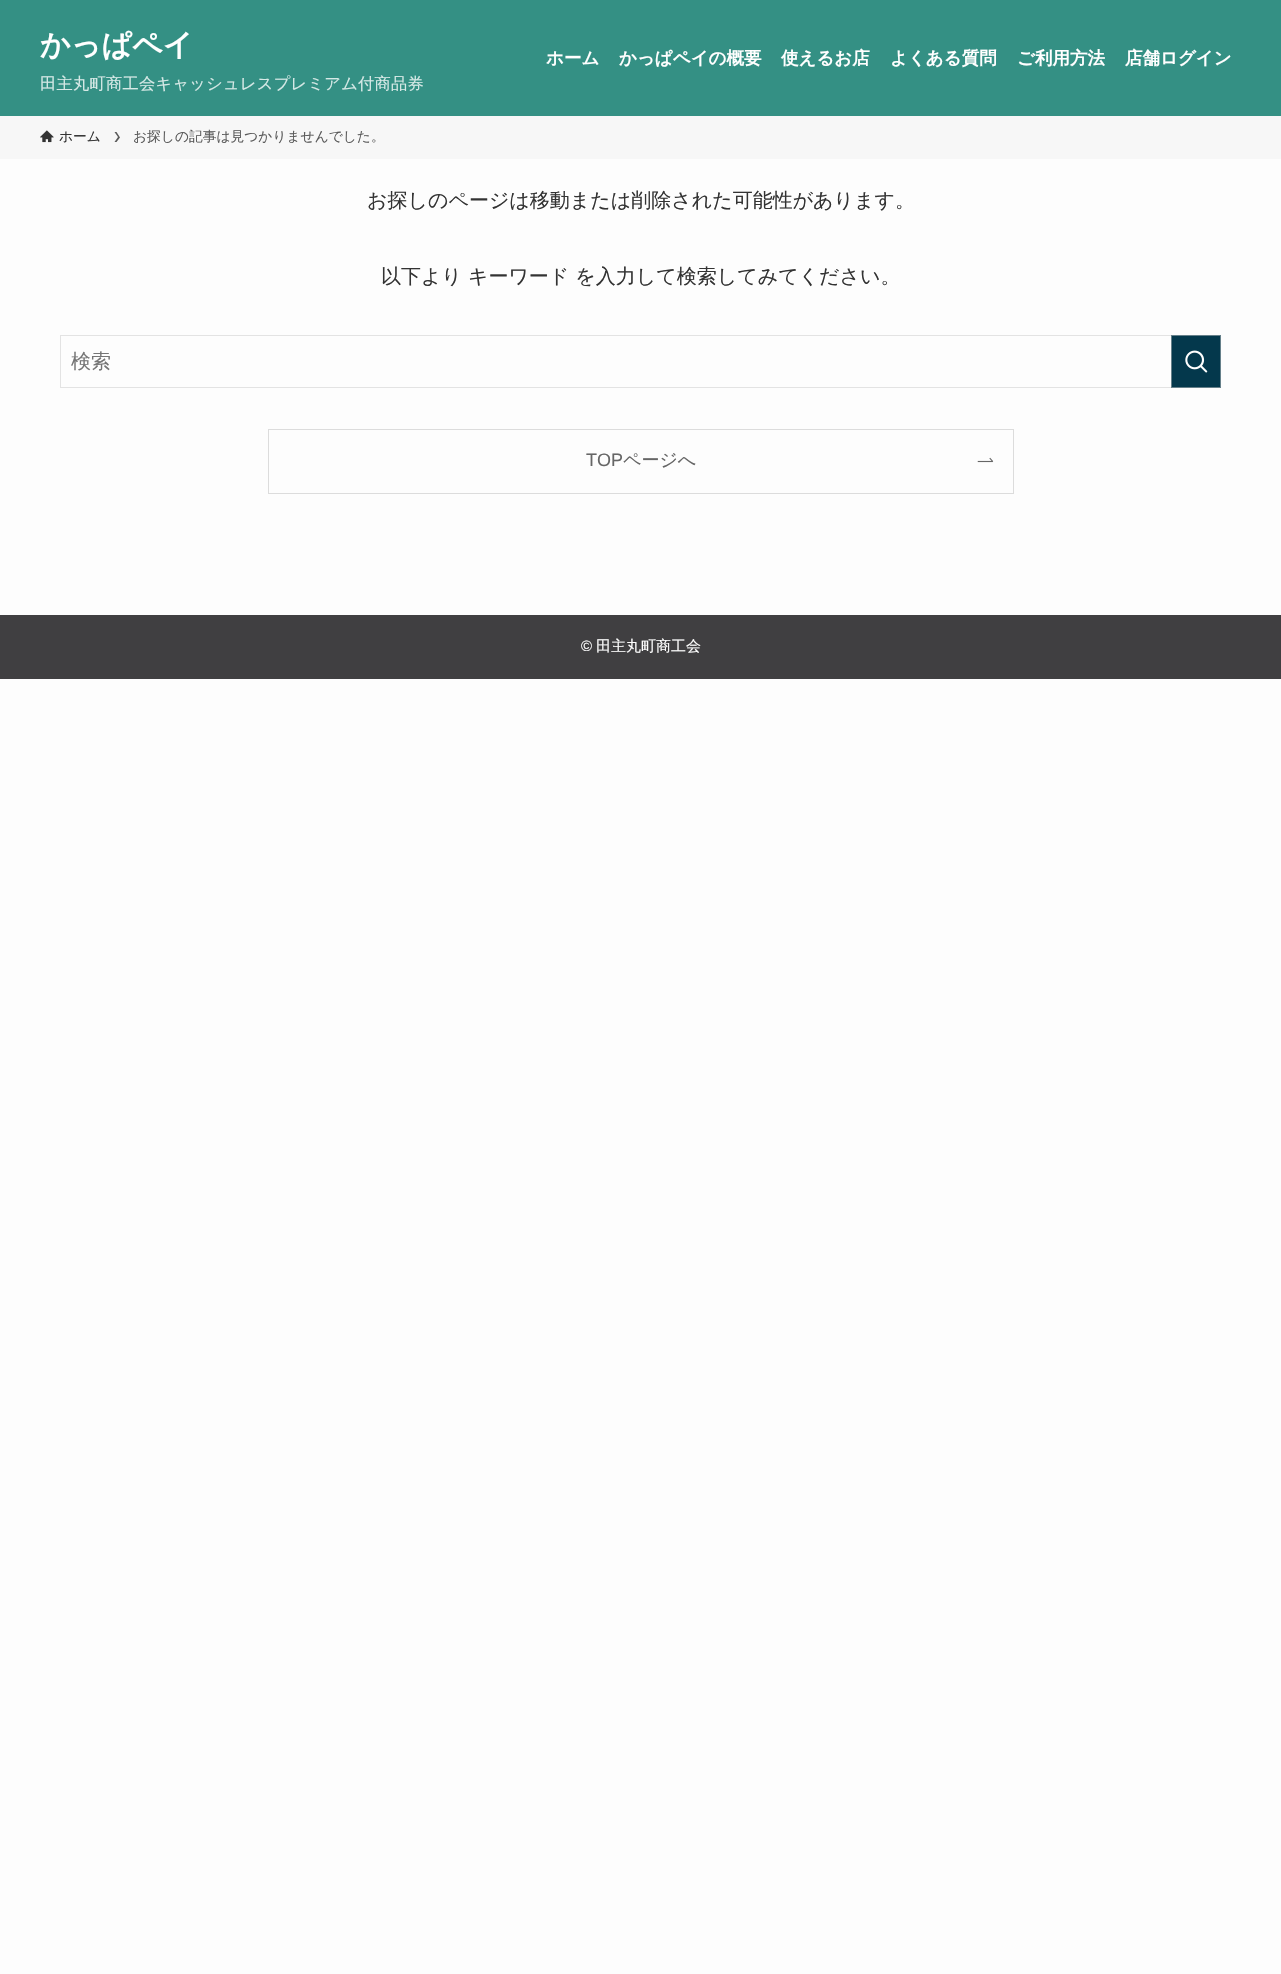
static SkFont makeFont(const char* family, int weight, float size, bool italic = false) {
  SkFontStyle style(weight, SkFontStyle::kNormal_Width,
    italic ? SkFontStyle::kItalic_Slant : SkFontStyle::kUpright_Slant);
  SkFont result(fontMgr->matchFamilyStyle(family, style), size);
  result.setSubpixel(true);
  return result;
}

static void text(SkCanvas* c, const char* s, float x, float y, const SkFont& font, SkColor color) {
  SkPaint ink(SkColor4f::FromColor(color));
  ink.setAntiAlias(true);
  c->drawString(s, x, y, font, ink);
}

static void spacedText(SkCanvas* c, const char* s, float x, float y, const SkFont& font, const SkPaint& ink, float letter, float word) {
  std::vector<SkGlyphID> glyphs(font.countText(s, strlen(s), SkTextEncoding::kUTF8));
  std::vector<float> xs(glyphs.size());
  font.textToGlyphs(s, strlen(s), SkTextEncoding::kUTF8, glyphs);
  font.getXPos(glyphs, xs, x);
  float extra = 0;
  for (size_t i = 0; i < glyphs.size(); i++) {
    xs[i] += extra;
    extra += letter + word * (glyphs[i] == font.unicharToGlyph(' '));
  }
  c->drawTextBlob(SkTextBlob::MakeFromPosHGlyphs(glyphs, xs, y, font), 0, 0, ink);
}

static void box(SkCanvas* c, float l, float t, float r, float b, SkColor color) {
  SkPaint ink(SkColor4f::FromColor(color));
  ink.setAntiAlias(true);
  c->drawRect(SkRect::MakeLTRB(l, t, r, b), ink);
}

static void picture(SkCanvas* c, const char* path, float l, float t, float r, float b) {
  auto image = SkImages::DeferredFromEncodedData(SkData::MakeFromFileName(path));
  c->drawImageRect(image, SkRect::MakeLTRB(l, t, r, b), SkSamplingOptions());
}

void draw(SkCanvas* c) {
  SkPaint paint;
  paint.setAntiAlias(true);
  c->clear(0xfffdfdfd);
  box(c, 0, 0, 1281, 116, 0xff349084);
  SkFont face1 = makeFont("WenQuanYi Zen Hei", 700, 30);
  text(c, "かっぱペイ", 40, 55, face1, 0xffffffff);
  SkFont face2 = makeFont("WenQuanYi Zen Hei", 500, 16.25f);
  paint.setColor(0xffd6e9e6);
  spacedText(c, "田主丸町商工会キャッシュレスプレミアム付商品券", 40, 89, face2, paint, 0.25f, 0);
  SkFont face3 = makeFont("WenQuanYi Zen Hei", 700, 17.5f);
  text(c, "ホーム", 546, 64, face3, 0xffffffff);
  text(c, "かっぱペイの概要", 619, 64, face3, 0xffffffff);
  text(c, "使えるお店", 781, 64, face3, 0xffffffff);
  text(c, "よくある質問", 890, 64, face3, 0xffffffff);
  text(c, "ご利用方法", 1017, 64, face3, 0xffffffff);
  text(c, "店舗ログイン", 1125, 64, face3, 0xffffffff);
  box(c, 0, 116, 1281, 159, 0xfff7f7f7);
  picture(c, "img_01.png", 40, 130, 54, 143);
  SkFont face4 = makeFont("WenQuanYi Zen Hei", 500, 13.75f);
  text(c, "ホーム", 59, 141, face4, 0xff333333);
  paint.setColor(0xff5a5a5a);
  c->drawPath(SkPathBuilder().moveTo(116.5f, 132).lineTo(114.5f, 132).lineTo(118, 137).lineTo(114.5f, 142).lineTo(116.5f, 142).lineTo(120, 137.5f).close().detach(), paint);
  text(c, "お探しの記事は見つかりませんでした。", 133, 141, face4, 0xff5a5a5a);
  SkFont face5 = makeFont("WenQuanYi Zen Hei", 500, 20);
  text(c, "お探しのページは移動または削除された可能性があります。", 367, 207, face5, 0xff333333);
  text(c, "以下より キーワード を入力して検索してみてください。", 381, 283, face5, 0xff333333);
  paint.setStyle(SkPaint::kStroke_Style);
  paint.setStrokeWidth(1);
  paint.setColor(0xffe3e3e3);
  c->drawRect(SkRect::MakeLTRB(60.5f, 335.5f, 1220.5f, 387.5f), paint);
  text(c, "検索", 71, 368, face5, 0xff757575);
  paint.setStyle(SkPaint::kFill_Style);
  paint.setColor(0xff04384c);
  c->drawRect(SkRect::MakeLTRB(1171.5f, 335.5f, 1220.5f, 387.5f), paint);
  paint.setStyle(SkPaint::kStroke_Style);
  paint.setColor(0xff66808a);
  c->drawRect(SkRect::MakeLTRB(1171.5f, 335.5f, 1220.5f, 387.5f), paint);
  picture(c, "img_02.png", 1185, 350, 1208, 373);
  paint.setColor(0xffdcdcdc);
  c->drawRect(SkRect::MakeLTRB(268.5f, 429.5f, 1013.5f, 493.5f), paint);
  SkFont face6 = makeFont("Liberation Sans", 400, 18);
  text(c, "TOP", 586, 466, face6, 0xff666666);
  SkFont face7 = makeFont("WenQuanYi Zen Hei", 500, 18);
  text(c, "ページへ", 623, 466, face7, 0xff666666);
  picture(c, "img_03.png", 977, 457, 994, 463);
  box(c, 0, 615, 1281, 679, 0xff403f41);
  SkFont face8 = makeFont("Liberation Sans", 400, 15);
  text(c, "©", 581, 651, face8, 0xffffffff);
  SkFont face9 = makeFont("WenQuanYi Zen Hei", 500, 15);
  text(c, "田主丸町商工会", 596, 651, face9, 0xffffffff);
}
